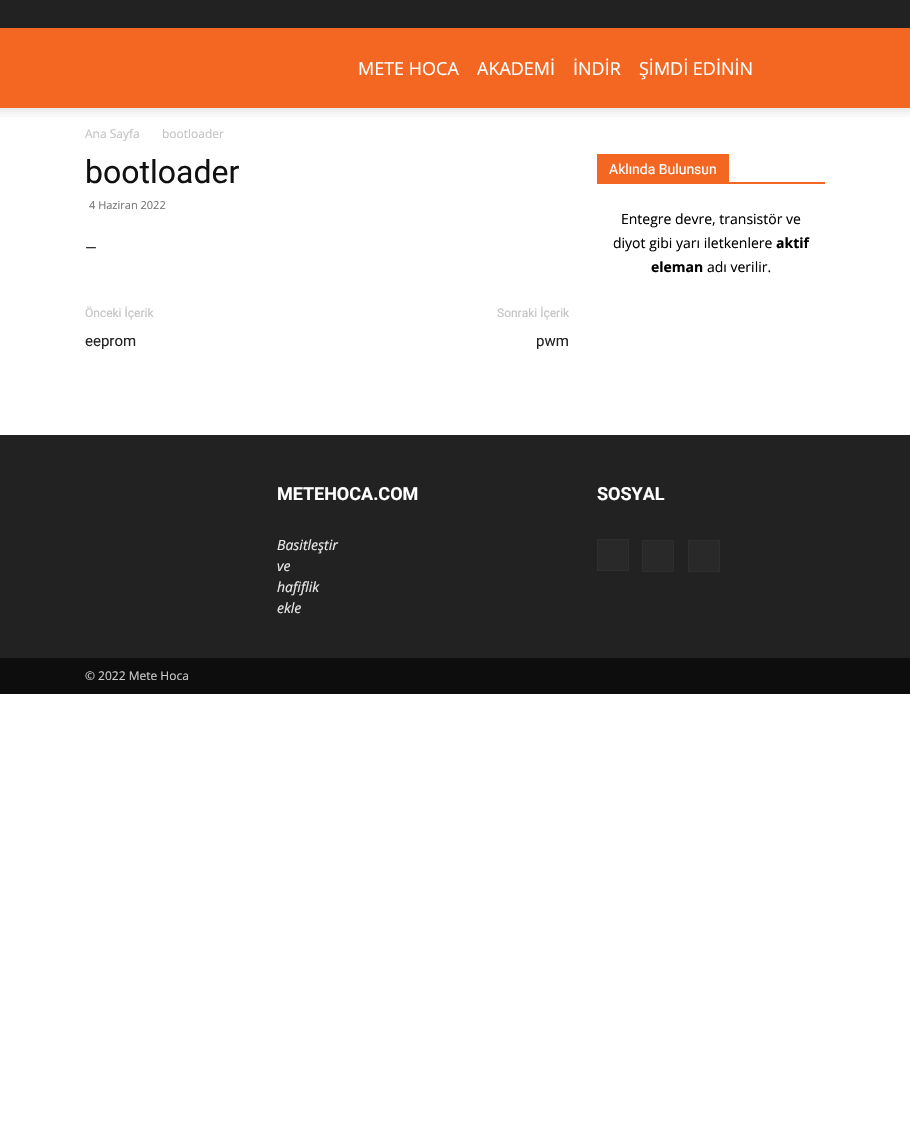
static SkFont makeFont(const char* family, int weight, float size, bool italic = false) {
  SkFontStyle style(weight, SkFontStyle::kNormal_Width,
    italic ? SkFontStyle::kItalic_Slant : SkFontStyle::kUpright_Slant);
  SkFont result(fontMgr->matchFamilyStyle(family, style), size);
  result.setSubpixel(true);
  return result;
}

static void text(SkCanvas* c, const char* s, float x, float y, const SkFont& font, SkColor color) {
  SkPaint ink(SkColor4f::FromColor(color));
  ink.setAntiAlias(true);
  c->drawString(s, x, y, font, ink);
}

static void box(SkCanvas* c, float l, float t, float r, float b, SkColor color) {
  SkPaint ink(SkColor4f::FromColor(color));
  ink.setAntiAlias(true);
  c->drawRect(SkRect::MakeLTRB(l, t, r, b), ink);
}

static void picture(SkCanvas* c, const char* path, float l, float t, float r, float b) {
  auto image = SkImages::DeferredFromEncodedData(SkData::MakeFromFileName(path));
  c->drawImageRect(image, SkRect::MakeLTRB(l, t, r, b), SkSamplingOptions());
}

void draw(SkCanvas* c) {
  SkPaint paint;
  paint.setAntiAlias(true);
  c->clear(0xffffffff);
  box(c, 0, 0, 910, 28, 0xff222222);
  box(c, 0, 28, 910, 108, 0xfff36722);
  SkFont face1 = makeFont("Open Sans", 400, 18);
  text(c, "METE HOCA", 358, 75, face1, 0xffffffff);
  text(c, "AKADEMİ", 477, 75, face1, 0xffffffff);
  text(c, "İNDİR", 573, 75, face1, 0xffffffff);
  text(c, "ŞİMDİ EDİNİN", 639, 75, face1, 0xffffffff);
  picture(c, "img_01.png", 0, 108, 910, 117);
  SkFont face2 = makeFont("Open Sans", 400, 12);
  text(c, "Ana Sayfa", 85, 138, face2, 0xffc3c3c3);
  text(c, "bootloader", 162, 138, face2, 0xffc3c3c3);
  SkFont face3 = makeFont("Roboto", 400, 32);
  text(c, "bootloader", 85, 183, face3, 0xff111111);
  SkFont face4 = makeFont("Open Sans", 400, 11);
  text(c, "4 Haziran 2022", 89, 209, face4, 0xff767676);
  SkFont face5 = makeFont("Roboto", 400, 15);
  text(c, "—", 85, 253, face5, 0xff222222);
  SkFont face6 = makeFont("Roboto", 400, 12);
  text(c, "Önceki İçerik", 85, 317, face6, 0xffc3c3c3);
  text(c, "eeprom", 85, 346, face5, 0xff222222);
  text(c, "Sonraki İçerik", 497, 317, face6, 0xffc3c3c3);
  text(c, "pwm", 536, 346, face5, 0xff222222);
  box(c, 597, 182, 825, 184, 0xfff36722);
  box(c, 597, 154, 729, 182, 0xfff36722);
  SkFont face7 = makeFont("Roboto", 400, 14);
  text(c, "Aklında Bulunsun", 609, 174, face7, 0xffffffff);
  SkFont face8 = makeFont("Open Sans", 400, 14);
  text(c, "Entegre devre, transistör ve", 621, 224, face8, 0xff000000);
  text(c, "diyot gibi yarı iletkenlere", 613, 248, face8, 0xff000000);
  SkFont face9 = makeFont("Open Sans", 700, 14);
  text(c, "aktif", 776, 248, face9, 0xff000000);
  text(c, "eleman", 651, 272, face9, 0xff000000);
  text(c, "adı verilir.", 707, 272, face8, 0xff000000);
  box(c, 0, 435, 910, 658, 0xff222222);
  SkFont face10 = makeFont("Roboto", 700, 18);
  text(c, "METEHOCA.COM", 277, 500, face10, 0xffffffff);
  SkFont face11 = makeFont("Open Sans", 400, 14, true);
  text(c, "Basitleştir", 277, 550, face11, 0xffeaeaea);
  text(c, "ve", 277, 571, face11, 0xffeaeaea);
  text(c, "hafiflik", 277, 592, face11, 0xffeaeaea);
  text(c, "ekle", 277, 613, face11, 0xffeaeaea);
  text(c, "SOSYAL", 597, 500, face10, 0xffffffff);
  paint.setColor(0xff292929);
  c->drawRect(SkRect::MakeLTRB(597.5f, 539.5f, 628.5f, 570.5f), paint);
  paint.setStyle(SkPaint::kStroke_Style);
  paint.setStrokeWidth(1);
  paint.setColor(0xff2f2f2f);
  c->drawRect(SkRect::MakeLTRB(597.5f, 539.5f, 628.5f, 570.5f), paint);
  paint.setStyle(SkPaint::kFill_Style);
  paint.setColor(0xff292929);
  c->drawRect(SkRect::MakeLTRB(642.5f, 540.5f, 673.5f, 571.5f), paint);
  paint.setStyle(SkPaint::kStroke_Style);
  paint.setColor(0xff2f2f2f);
  c->drawRect(SkRect::MakeLTRB(642.5f, 540.5f, 673.5f, 571.5f), paint);
  paint.setStyle(SkPaint::kFill_Style);
  paint.setColor(0xff292929);
  c->drawRect(SkRect::MakeLTRB(688.5f, 540.5f, 719.5f, 571.5f), paint);
  paint.setStyle(SkPaint::kStroke_Style);
  paint.setColor(0xff2f2f2f);
  c->drawRect(SkRect::MakeLTRB(688.5f, 540.5f, 719.5f, 571.5f), paint);
  box(c, 0, 658, 910, 694, 0xff0d0d0d);
  text(c, "© 2022 Mete Hoca", 85, 680, face2, 0xffcccccc);
}
